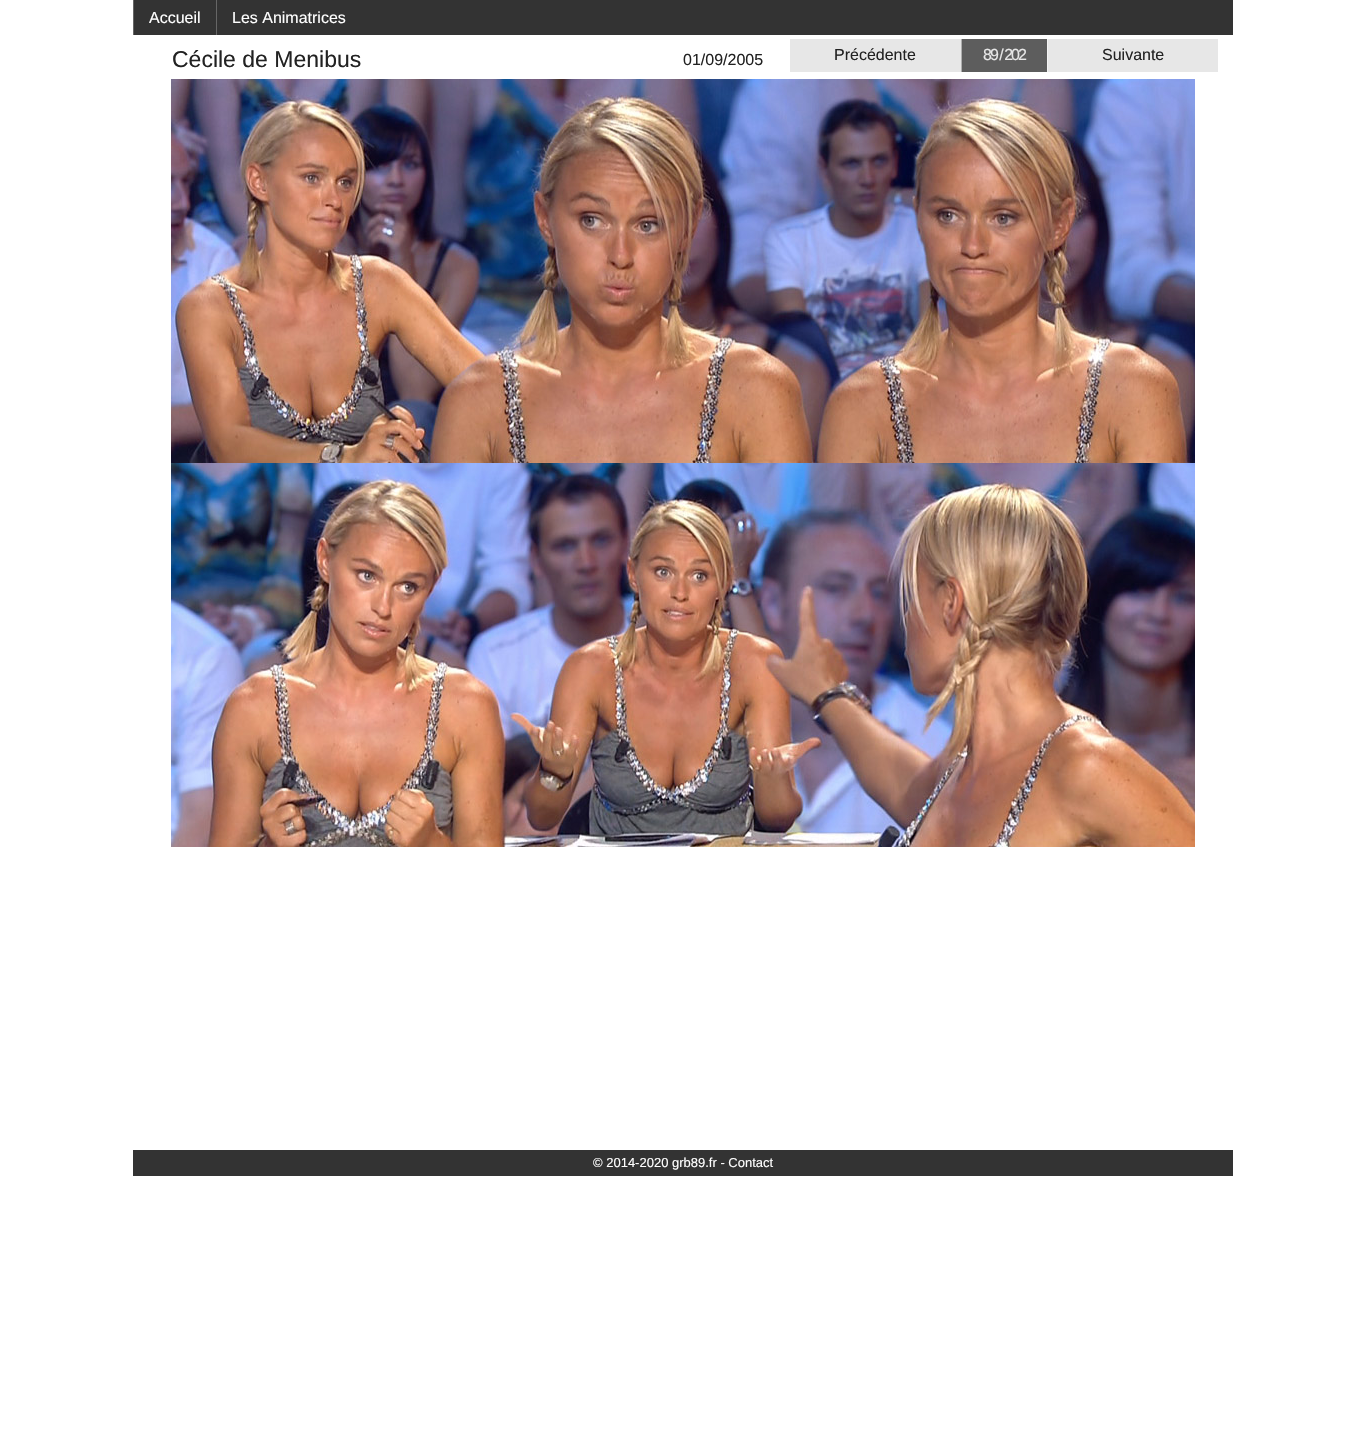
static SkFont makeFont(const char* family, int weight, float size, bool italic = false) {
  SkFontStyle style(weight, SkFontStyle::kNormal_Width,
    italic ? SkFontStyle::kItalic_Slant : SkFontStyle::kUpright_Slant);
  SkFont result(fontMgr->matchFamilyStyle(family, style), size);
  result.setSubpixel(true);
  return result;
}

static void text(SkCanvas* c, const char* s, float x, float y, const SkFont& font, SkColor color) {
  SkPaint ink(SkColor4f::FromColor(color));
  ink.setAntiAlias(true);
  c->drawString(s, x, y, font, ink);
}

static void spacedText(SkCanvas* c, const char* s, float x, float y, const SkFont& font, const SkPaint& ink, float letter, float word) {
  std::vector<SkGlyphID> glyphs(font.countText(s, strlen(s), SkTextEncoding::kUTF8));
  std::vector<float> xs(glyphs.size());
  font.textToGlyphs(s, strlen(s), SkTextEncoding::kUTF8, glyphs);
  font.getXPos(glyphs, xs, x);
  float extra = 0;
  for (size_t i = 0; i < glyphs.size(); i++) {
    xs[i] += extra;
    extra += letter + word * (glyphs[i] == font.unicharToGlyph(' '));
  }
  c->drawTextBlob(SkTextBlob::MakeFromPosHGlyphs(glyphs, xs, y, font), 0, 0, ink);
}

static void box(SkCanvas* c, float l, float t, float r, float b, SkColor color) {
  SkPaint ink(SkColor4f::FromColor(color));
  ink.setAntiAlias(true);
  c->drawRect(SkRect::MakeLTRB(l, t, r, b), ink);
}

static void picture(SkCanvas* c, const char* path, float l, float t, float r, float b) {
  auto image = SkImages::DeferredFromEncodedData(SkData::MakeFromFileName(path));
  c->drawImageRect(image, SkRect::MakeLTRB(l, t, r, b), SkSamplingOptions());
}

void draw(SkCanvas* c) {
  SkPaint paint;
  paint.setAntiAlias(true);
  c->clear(0xffffffff);
  box(c, 134, 0, 1233, 35, 0xff333333);
  box(c, 133, 0, 134, 35, 0xff666666);
  SkFont face1 = makeFont("Liberation Sans", 400, 16);
  text(c, "Accueil", 149, 23, face1, 0xffffffff);
  box(c, 216, 0, 217, 35, 0xff666666);
  text(c, "Les Animatrices", 232, 23, face1, 0xffffffff);
  SkFont face2 = makeFont("Liberation Sans", 400, 23);
  text(c, "Cécile de Menibus", 172, 67, face2, 0xff222222);
  text(c, "01/09/2005", 683, 65, face1, 0xff222222);
  box(c, 790, 39, 961, 72, 0xffe7e7e7);
  text(c, "Précédente", 834, 60, face1, 0xff222222);
  box(c, 962, 39, 1047, 72, 0xff5d5d5d);
  box(c, 961, 39, 962, 72, 0xffaeaeae);
  paint.setColor(0xffe7e7e7);
  spacedText(c, "89 / 202", 983, 60, face1, paint, -2, 0);
  box(c, 1048, 39, 1218, 72, 0xffe7e7e7);
  box(c, 1047, 39, 1048, 72, 0xfff3f3f3);
  text(c, "Suivante", 1102, 60, face1, 0xff222222);
  picture(c, "img_01.png", 171, 79, 1195, 847);
  box(c, 133, 1150, 1233, 1176, 0xff333333);
  SkFont face3 = makeFont("Liberation Sans", 400, 13);
  text(c, "© 2014-2020 grb89.fr - Contact", 593, 1167, face3, 0xffffffff);
}
